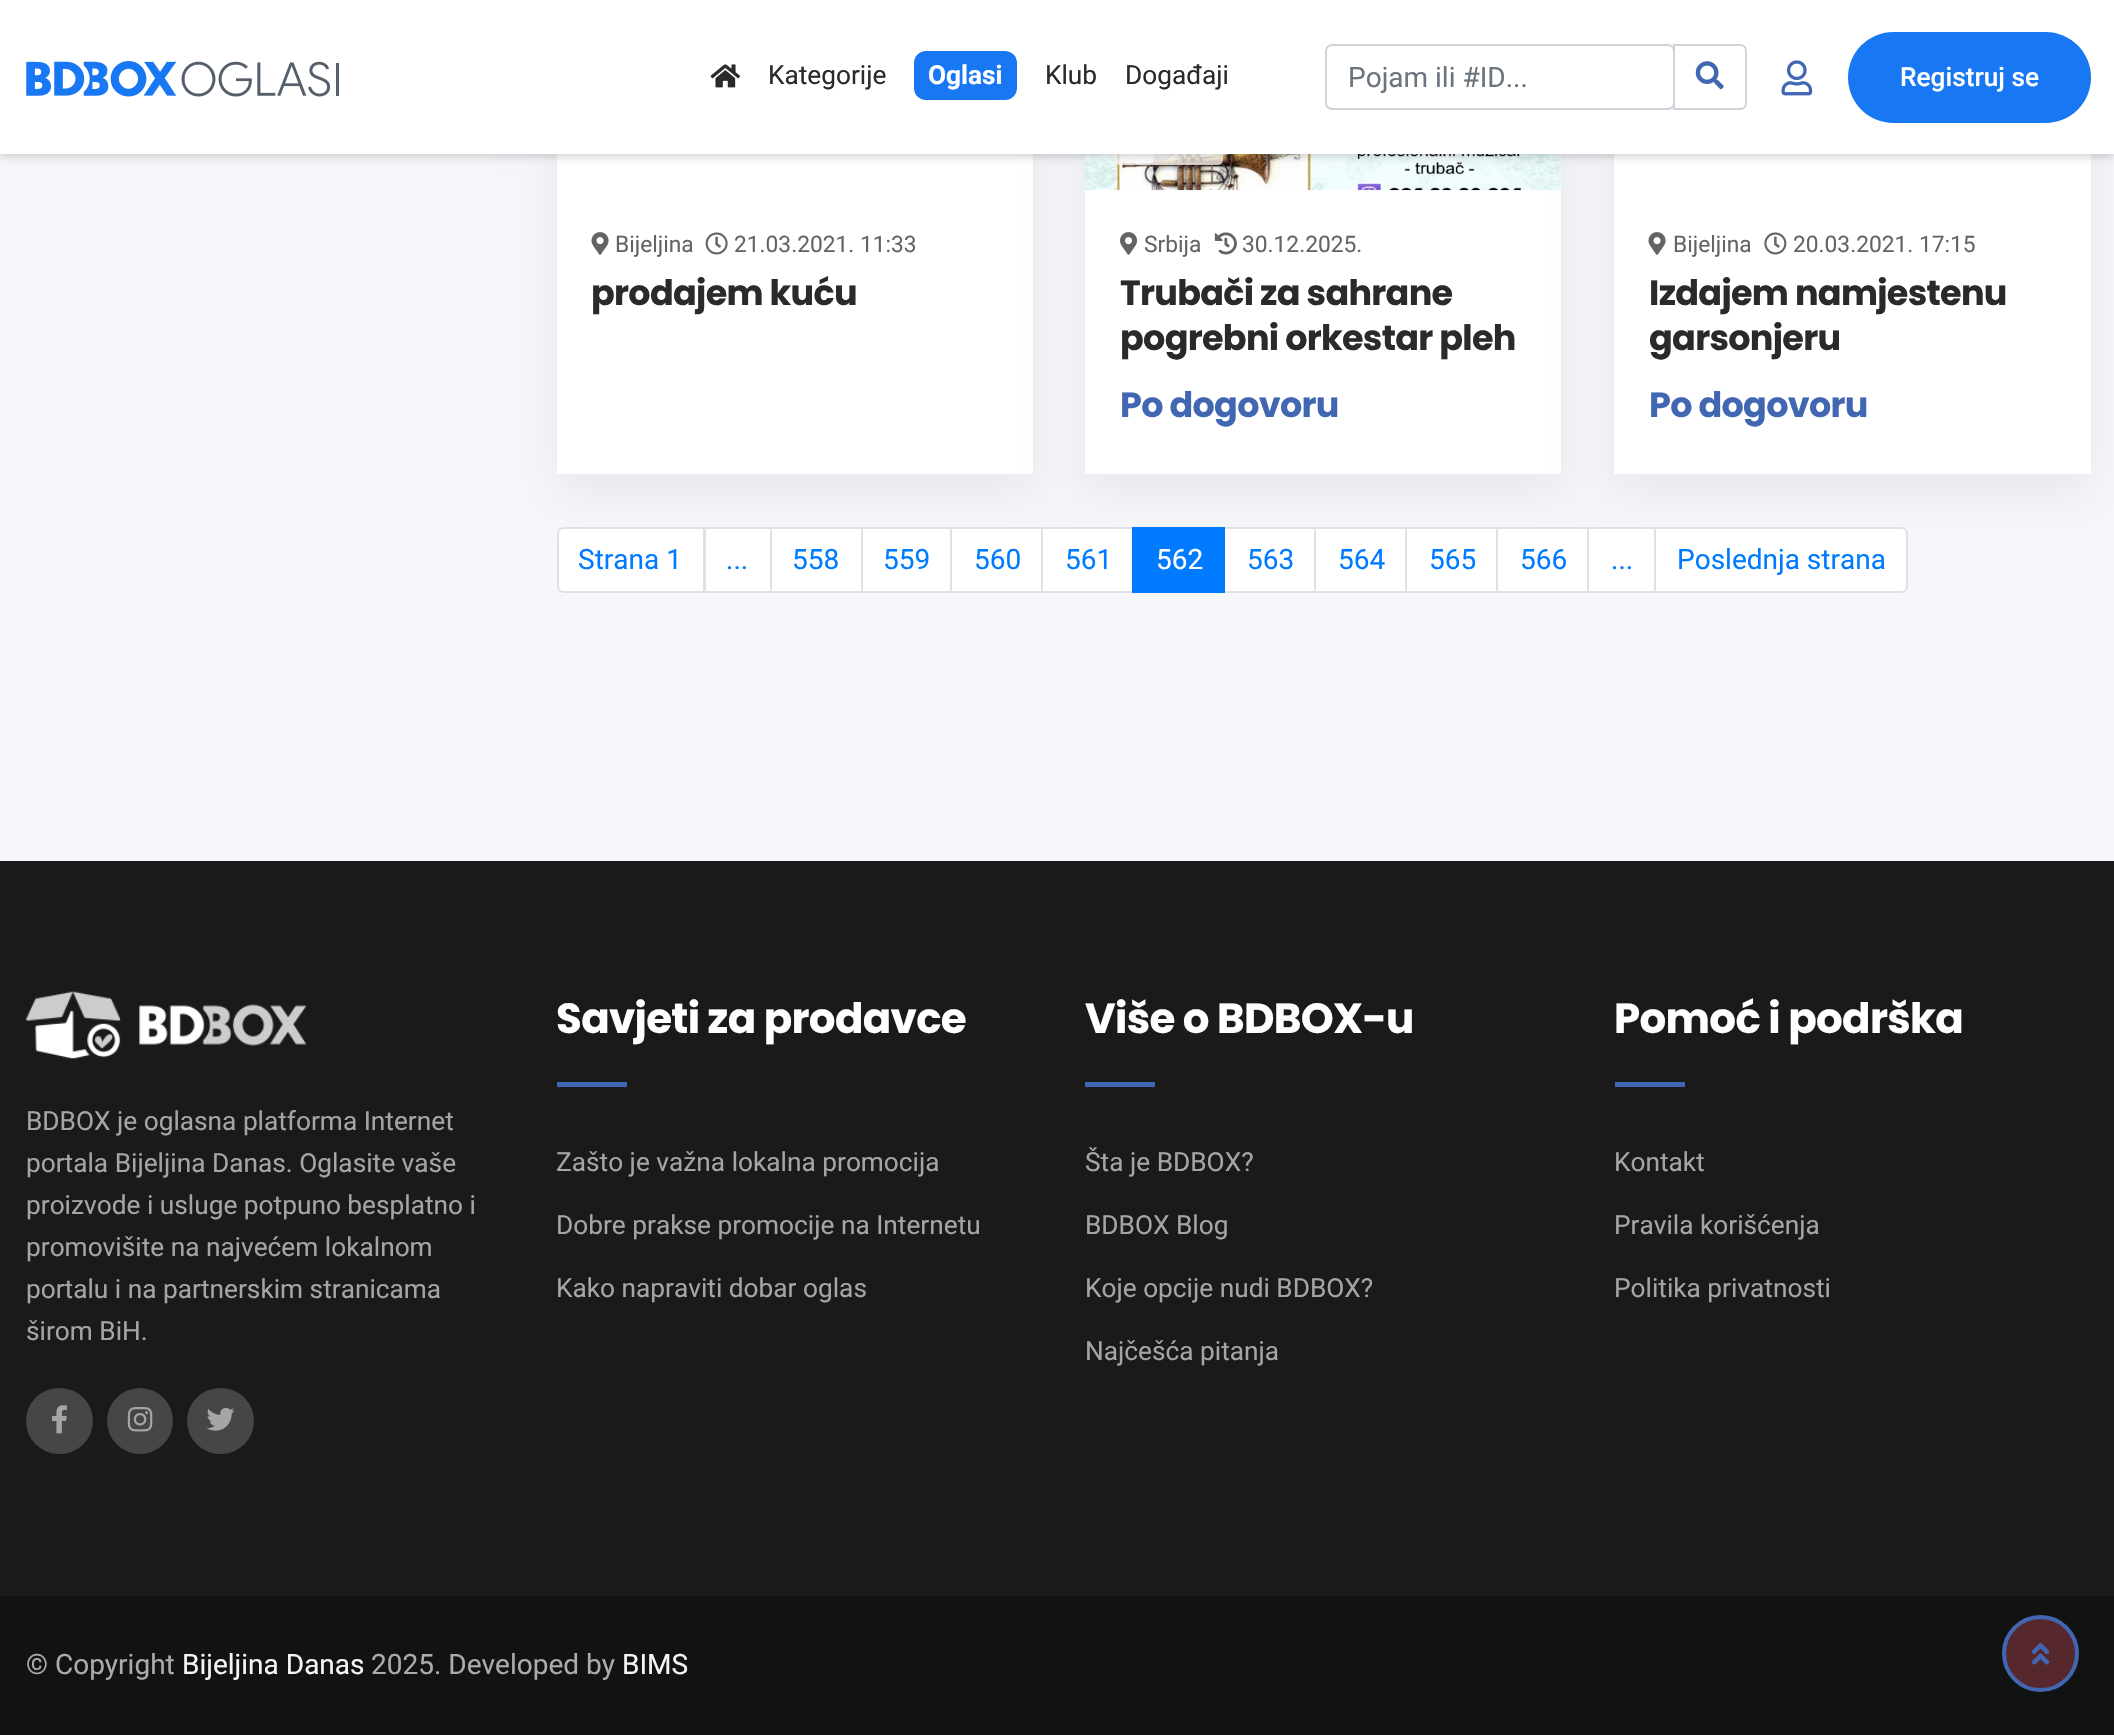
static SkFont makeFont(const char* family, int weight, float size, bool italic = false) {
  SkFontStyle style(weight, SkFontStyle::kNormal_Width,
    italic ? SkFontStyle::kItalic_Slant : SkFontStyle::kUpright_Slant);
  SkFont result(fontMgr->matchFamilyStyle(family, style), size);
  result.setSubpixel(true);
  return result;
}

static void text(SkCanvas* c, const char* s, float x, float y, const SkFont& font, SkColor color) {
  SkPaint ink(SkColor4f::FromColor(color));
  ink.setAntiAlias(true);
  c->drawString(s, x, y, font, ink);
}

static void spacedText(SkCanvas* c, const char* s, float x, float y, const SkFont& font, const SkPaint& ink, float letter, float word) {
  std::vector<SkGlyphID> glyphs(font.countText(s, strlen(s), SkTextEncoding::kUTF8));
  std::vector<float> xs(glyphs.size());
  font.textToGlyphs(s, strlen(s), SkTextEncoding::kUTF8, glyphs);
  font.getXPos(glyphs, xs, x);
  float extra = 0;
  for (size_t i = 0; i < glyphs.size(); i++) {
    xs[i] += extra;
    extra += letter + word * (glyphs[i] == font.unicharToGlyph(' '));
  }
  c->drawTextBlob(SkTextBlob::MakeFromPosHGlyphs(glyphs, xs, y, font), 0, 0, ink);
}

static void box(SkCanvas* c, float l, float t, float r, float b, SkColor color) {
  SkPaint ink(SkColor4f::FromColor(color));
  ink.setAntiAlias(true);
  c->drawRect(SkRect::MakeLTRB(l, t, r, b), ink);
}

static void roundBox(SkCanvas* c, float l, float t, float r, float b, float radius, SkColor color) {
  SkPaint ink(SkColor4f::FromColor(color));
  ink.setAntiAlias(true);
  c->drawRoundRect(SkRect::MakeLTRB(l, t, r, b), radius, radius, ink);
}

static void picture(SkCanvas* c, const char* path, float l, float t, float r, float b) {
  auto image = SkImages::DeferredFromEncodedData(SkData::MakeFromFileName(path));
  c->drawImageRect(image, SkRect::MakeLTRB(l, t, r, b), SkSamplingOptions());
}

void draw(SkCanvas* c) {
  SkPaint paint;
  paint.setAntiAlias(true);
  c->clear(0xfff5f7fa);
  paint.setColor(0x0f000000);
  paint.setMaskFilter(SkMaskFilter::MakeBlur(kNormal_SkBlurStyle, 22));
  c->drawRect(SkRect::MakeLTRB(557, -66, 1033, 494), paint);
  paint.setMaskFilter(nullptr);
  box(c, 557, 154, 1033, 474, 0xffffffff);
  paint.setMaskFilter(SkMaskFilter::MakeBlur(kNormal_SkBlurStyle, 22));
  c->drawRect(SkRect::MakeLTRB(1085, -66, 1561, 494), paint);
  paint.setMaskFilter(nullptr);
  box(c, 1085, 190, 1561, 474, 0xffffffff);
  picture(c, "img_07.png", 1085, 154, 1561, 191);
  roundBox(c, 1115, 126, 1223, 165, 5, 0xb8ffffff);
  paint.setMaskFilter(SkMaskFilter::MakeBlur(kNormal_SkBlurStyle, 22));
  c->drawRect(SkRect::MakeLTRB(1614, -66, 2091, 494), paint);
  paint.setMaskFilter(nullptr);
  box(c, 1614, 154, 2091, 474, 0xffffffff);
  paint.setColor(0x33000000);
  paint.setMaskFilter(SkMaskFilter::MakeBlur(kNormal_SkBlurStyle, 4.5f));
  c->drawRect(SkRect::MakeLTRB(0, 2, 2114, 156), paint);
  paint.setMaskFilter(nullptr);
  box(c, 0, 0, 2114, 154, 0xffffffff);
  picture(c, "img_01.png", 26, 61, 339, 97);
  picture(c, "img_02.png", 710, 64, 740, 88);
  SkFont face1 = makeFont("Roboto", 400, 26.25f);
  text(c, "Kategorije", 768, 84, face1, 0xff2a2a2a);
  roundBox(c, 914, 51, 1017, 100, 12, 0xff1877f2);
  SkFont face2 = makeFont("Roboto", 700, 26.25f);
  text(c, "Oglasi", 928, 84, face2, 0xffffffff);
  text(c, "Klub", 1045, 84, face1, 0xff2a2a2a);
  text(c, "Događaji", 1125, 84, face1, 0xff2a2a2a);
  paint.setStyle(SkPaint::kStroke_Style);
  paint.setStrokeWidth(2);
  paint.setColor(0xffced4da);
  c->drawRoundRect(SkRect::MakeLTRB(1326, 45, 1674, 109), 6, 6, paint);
  SkFont face3 = makeFont("Roboto", 400, 28);
  text(c, "Pojam ili #ID...", 1348, 87, face3, 0xff6c757d);
  c->drawPath(SkPathBuilder().moveTo(1674, 45).lineTo(1740, 45).cubicTo(1743.5f, 45, 1746, 47.5f, 1746, 51).lineTo(1746, 103).cubicTo(1746, 106.5f, 1743.5f, 109, 1740, 109).lineTo(1674, 109).close().detach(), paint);
  picture(c, "img_03.png", 1695, 61, 1724, 90);
  picture(c, "img_04.png", 1781, 60, 1813, 96);
  roundBox(c, 1848, 32, 2091, 123, 45.5f, 0xff1877f2);
  SkFont face4 = makeFont("Roboto", 500, 26.25f);
  text(c, "Registruj se", 1900, 86, face4, 0xffffffff);
  picture(c, "img_05.png", 591, 232, 609, 255);
  SkFont face5 = makeFont("Roboto", 400, 22.75f);
  text(c, "Bijeljina", 615, 252, face5, 0xff646464);
  picture(c, "img_06.png", 705, 232, 728, 255);
  text(c, "21.03.2021. 11:33", 734, 252, face5, 0xff646464);
  SkFont face6 = makeFont("Poppins", 700, 35);
  paint.setStyle(SkPaint::kFill_Style);
  paint.setColor(0xff2a2a2a);
  spacedText(c, "prodajem kuću", 591, 305, face6, paint, -0.7f, 0);
  picture(c, "img_08.png", 1120, 232, 1138, 255);
  text(c, "Srbija", 1144, 252, face5, 0xff646464);
  picture(c, "img_09.png", 1214, 232, 1237, 255);
  text(c, "30.12.2025.", 1242, 252, face5, 0xff646464);
  spacedText(c, "Trubači za sahrane", 1120, 305, face6, paint, -0.7f, 0);
  spacedText(c, "pogrebni orkestar pleh", 1120, 350, face6, paint, -0.7f, 0);
  paint.setColor(0xff4267b2);
  spacedText(c, "Po dogovoru", 1120, 417, face6, paint, -0.7f, 0);
  picture(c, "img_05.png", 1648, 232, 1666, 255);
  text(c, "Bijeljina", 1673, 252, face5, 0xff646464);
  picture(c, "img_10.png", 1764, 232, 1787, 255);
  text(c, "20.03.2021. 17:15", 1793, 252, face5, 0xff646464);
  paint.setColor(0xff2a2a2a);
  spacedText(c, "Izdajem namjestenu", 1649, 305, face6, paint, -0.7f, 0);
  spacedText(c, "garsonjeru", 1649, 350, face6, paint, -0.7f, 0);
  paint.setColor(0xff4267b2);
  spacedText(c, "Po dogovoru", 1649, 417, face6, paint, -0.7f, 0);
  paint.setColor(0xffffffff);
  c->drawPath(SkPathBuilder().moveTo(564, 528).lineTo(704, 528).lineTo(704, 592).lineTo(564, 592).cubicTo(560.5f, 592, 558, 589.5f, 558, 586).lineTo(558, 534).cubicTo(558, 530.5f, 560.5f, 528, 564, 528).close().detach(), paint);
  paint.setStyle(SkPaint::kStroke_Style);
  paint.setColor(0xffdee2e6);
  c->drawPath(SkPathBuilder().moveTo(564, 528).lineTo(704, 528).lineTo(704, 592).lineTo(564, 592).cubicTo(560.5f, 592, 558, 589.5f, 558, 586).lineTo(558, 534).cubicTo(558, 530.5f, 560.5f, 528, 564, 528).close().detach(), paint);
  text(c, "Strana 1", 578, 569, face3, 0xff007bff);
  paint.setStyle(SkPaint::kFill_Style);
  paint.setColor(0xffffffff);
  c->drawRect(SkRect::MakeLTRB(705, 528, 771, 592), paint);
  paint.setStyle(SkPaint::kStroke_Style);
  paint.setColor(0xffdee2e6);
  c->drawRect(SkRect::MakeLTRB(705, 528, 771, 592), paint);
  text(c, "...", 726, 569, face3, 0xff007bff);
  paint.setStyle(SkPaint::kFill_Style);
  paint.setColor(0xffffffff);
  c->drawRect(SkRect::MakeLTRB(771, 528, 862, 592), paint);
  paint.setStyle(SkPaint::kStroke_Style);
  paint.setColor(0xffdee2e6);
  c->drawRect(SkRect::MakeLTRB(771, 528, 862, 592), paint);
  text(c, "558", 792, 569, face3, 0xff007bff);
  paint.setStyle(SkPaint::kFill_Style);
  paint.setColor(0xffffffff);
  c->drawRect(SkRect::MakeLTRB(862, 528, 951, 592), paint);
  paint.setStyle(SkPaint::kStroke_Style);
  paint.setColor(0xffdee2e6);
  c->drawRect(SkRect::MakeLTRB(862, 528, 951, 592), paint);
  text(c, "559", 883, 569, face3, 0xff007bff);
  paint.setStyle(SkPaint::kFill_Style);
  paint.setColor(0xffffffff);
  c->drawRect(SkRect::MakeLTRB(951, 528, 1042, 592), paint);
  paint.setStyle(SkPaint::kStroke_Style);
  paint.setColor(0xffdee2e6);
  c->drawRect(SkRect::MakeLTRB(951, 528, 1042, 592), paint);
  text(c, "560", 974, 569, face3, 0xff007bff);
  paint.setStyle(SkPaint::kFill_Style);
  paint.setColor(0xffffffff);
  c->drawRect(SkRect::MakeLTRB(1042, 528, 1133, 592), paint);
  paint.setStyle(SkPaint::kStroke_Style);
  paint.setColor(0xffdee2e6);
  c->drawRect(SkRect::MakeLTRB(1042, 528, 1133, 592), paint);
  text(c, "561", 1065, 569, face3, 0xff007bff);
  paint.setStyle(SkPaint::kFill_Style);
  paint.setColor(0xffffffff);
  c->drawRect(SkRect::MakeLTRB(1224, 528, 1315, 592), paint);
  paint.setStyle(SkPaint::kStroke_Style);
  paint.setColor(0xffdee2e6);
  c->drawRect(SkRect::MakeLTRB(1224, 528, 1315, 592), paint);
  box(c, 1132, 527, 1225, 593, 0xff007bff);
  text(c, "562", 1156, 569, face3, 0xffffffff);
  text(c, "563", 1247, 569, face3, 0xff007bff);
  paint.setStyle(SkPaint::kFill_Style);
  paint.setColor(0xffffffff);
  c->drawRect(SkRect::MakeLTRB(1315, 528, 1406, 592), paint);
  paint.setStyle(SkPaint::kStroke_Style);
  paint.setColor(0xffdee2e6);
  c->drawRect(SkRect::MakeLTRB(1315, 528, 1406, 592), paint);
  text(c, "564", 1338, 569, face3, 0xff007bff);
  paint.setStyle(SkPaint::kFill_Style);
  paint.setColor(0xffffffff);
  c->drawRect(SkRect::MakeLTRB(1406, 528, 1497, 592), paint);
  paint.setStyle(SkPaint::kStroke_Style);
  paint.setColor(0xffdee2e6);
  c->drawRect(SkRect::MakeLTRB(1406, 528, 1497, 592), paint);
  text(c, "565", 1429, 569, face3, 0xff007bff);
  paint.setStyle(SkPaint::kFill_Style);
  paint.setColor(0xffffffff);
  c->drawRect(SkRect::MakeLTRB(1497, 528, 1588, 592), paint);
  paint.setStyle(SkPaint::kStroke_Style);
  paint.setColor(0xffdee2e6);
  c->drawRect(SkRect::MakeLTRB(1497, 528, 1588, 592), paint);
  text(c, "566", 1520, 569, face3, 0xff007bff);
  paint.setStyle(SkPaint::kFill_Style);
  paint.setColor(0xffffffff);
  c->drawRect(SkRect::MakeLTRB(1588, 528, 1655, 592), paint);
  paint.setStyle(SkPaint::kStroke_Style);
  paint.setColor(0xffdee2e6);
  c->drawRect(SkRect::MakeLTRB(1588, 528, 1655, 592), paint);
  text(c, "...", 1611, 569, face3, 0xff007bff);
  paint.setStyle(SkPaint::kFill_Style);
  paint.setColor(0xffffffff);
  c->drawPath(SkPathBuilder().moveTo(1655, 528).lineTo(1901, 528).cubicTo(1904.5f, 528, 1907, 530.5f, 1907, 534).lineTo(1907, 586).cubicTo(1907, 589.5f, 1904.5f, 592, 1901, 592).lineTo(1655, 592).close().detach(), paint);
  paint.setStyle(SkPaint::kStroke_Style);
  paint.setColor(0xffdee2e6);
  c->drawPath(SkPathBuilder().moveTo(1655, 528).lineTo(1901, 528).cubicTo(1904.5f, 528, 1907, 530.5f, 1907, 534).lineTo(1907, 586).cubicTo(1907, 589.5f, 1904.5f, 592, 1901, 592).lineTo(1655, 592).close().detach(), paint);
  text(c, "Poslednja strana", 1677, 569, face3, 0xff007bff);
  box(c, 0, 861, 2114, 1596, 0xff1a1a1a);
  picture(c, "img_11.png", 26, 991, 307, 1059);
  text(c, "BDBOX je oglasna platforma Internet", 26, 1130, face1, 0xffa5a5a5);
  text(c, "portala Bijeljina Danas. Oglasite vaše", 26, 1172, face1, 0xffa5a5a5);
  text(c, "proizvode i usluge potpuno besplatno i", 26, 1214, face1, 0xffa5a5a5);
  text(c, "promovišite na najvećem lokalnom", 26, 1256, face1, 0xffa5a5a5);
  text(c, "portalu i na partnerskim stranicama", 26, 1298, face1, 0xffa5a5a5);
  text(c, "širom BiH.", 26, 1340, face1, 0xffa5a5a5);
  roundBox(c, 26, 1388, 93, 1454, 33, 0xff464646);
  picture(c, "img_12.png", 52, 1405, 67, 1434);
  paint.setStyle(SkPaint::kFill_Style);
  paint.setColor(0xff464646);
  c->drawCircle(140, 1421, 33, paint);
  picture(c, "img_13.png", 127, 1407, 153, 1432);
  roundBox(c, 187, 1388, 254, 1454, 33, 0xff464646);
  picture(c, "img_14.png", 206, 1407, 235, 1431);
  SkFont face7 = makeFont("Poppins", 700, 42);
  paint.setColor(0xffffffff);
  spacedText(c, "Savjeti za prodavce", 556, 1033, face7, paint, -0.7f, 0);
  box(c, 557, 1082, 627, 1087, 0xff4267b2);
  text(c, "Zašto je važna lokalna promocija", 556, 1171, face1, 0xffa5a5a5);
  text(c, "Dobre prakse promocije na Internetu", 556, 1234, face1, 0xffa5a5a5);
  text(c, "Kako napraviti dobar oglas", 556, 1297, face1, 0xffa5a5a5);
  spacedText(c, "Više o BDBOX-u", 1085, 1033, face7, paint, -0.7f, 0);
  box(c, 1085, 1082, 1155, 1087, 0xff4267b2);
  text(c, "Šta je BDBOX?", 1085, 1171, face1, 0xffa5a5a5);
  text(c, "BDBOX Blog", 1085, 1234, face1, 0xffa5a5a5);
  text(c, "Koje opcije nudi BDBOX?", 1085, 1297, face1, 0xffa5a5a5);
  text(c, "Najčešća pitanja", 1085, 1360, face1, 0xffa5a5a5);
  spacedText(c, "Pomoć i podrška", 1614, 1033, face7, paint, -0.7f, 0);
  box(c, 1615, 1082, 1685, 1087, 0xff4267b2);
  text(c, "Kontakt", 1614, 1171, face1, 0xffa5a5a5);
  text(c, "Pravila korišćenja", 1614, 1234, face1, 0xffa5a5a5);
  text(c, "Politika privatnosti", 1614, 1297, face1, 0xffa5a5a5);
  box(c, 0, 1596, 2114, 1735, 0xff111212);
  text(c, "© Copyright", 26, 1674, face3, 0xffababab);
  text(c, "Bijeljina Danas", 182, 1674, face3, 0xfff5f5f5);
  text(c, "2025. Developed by", 371, 1674, face3, 0xffababab);
  text(c, "BIMS", 622, 1674, face3, 0xfff5f5f5);
  paint.setColor(0xff56282e);
  c->drawCircle(2040.5f, 1653.5f, 36.5f, paint);
  paint.setStyle(SkPaint::kStroke_Style);
  paint.setStrokeWidth(4);
  paint.setColor(0xff4267b2);
  c->drawCircle(2040.5f, 1653.5f, 36.5f, paint);
  picture(c, "img_15.png", 2031, 1642, 2050, 1665);
}
